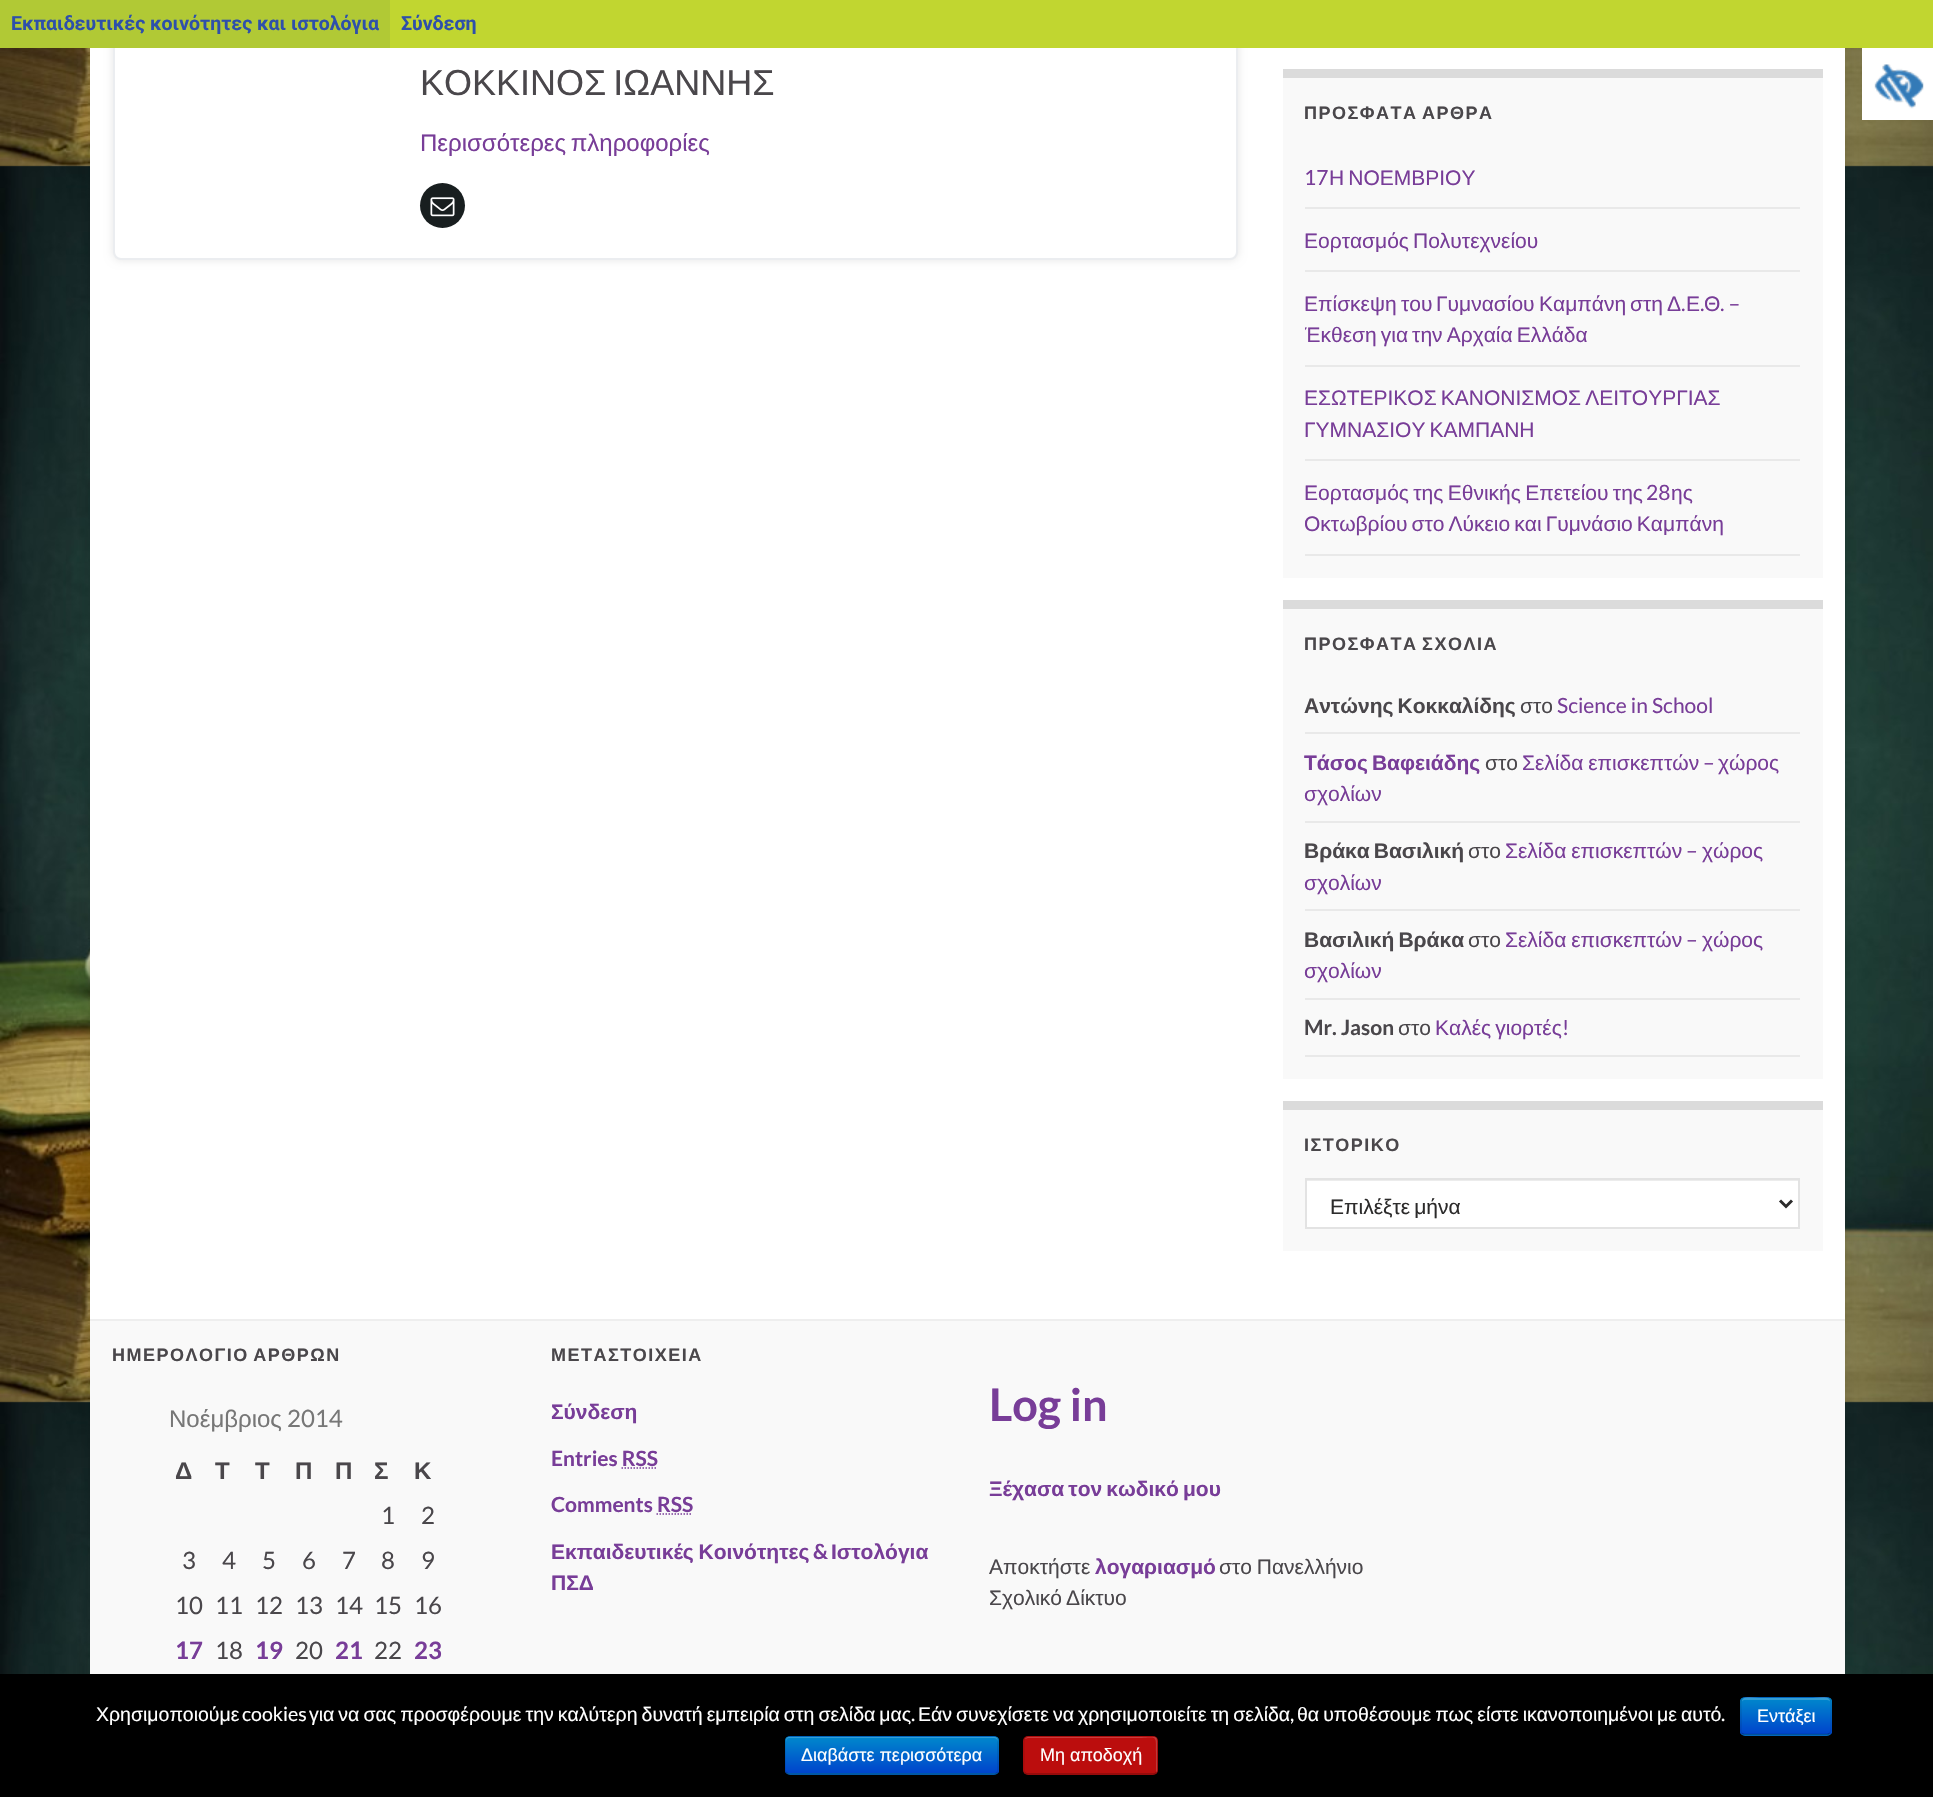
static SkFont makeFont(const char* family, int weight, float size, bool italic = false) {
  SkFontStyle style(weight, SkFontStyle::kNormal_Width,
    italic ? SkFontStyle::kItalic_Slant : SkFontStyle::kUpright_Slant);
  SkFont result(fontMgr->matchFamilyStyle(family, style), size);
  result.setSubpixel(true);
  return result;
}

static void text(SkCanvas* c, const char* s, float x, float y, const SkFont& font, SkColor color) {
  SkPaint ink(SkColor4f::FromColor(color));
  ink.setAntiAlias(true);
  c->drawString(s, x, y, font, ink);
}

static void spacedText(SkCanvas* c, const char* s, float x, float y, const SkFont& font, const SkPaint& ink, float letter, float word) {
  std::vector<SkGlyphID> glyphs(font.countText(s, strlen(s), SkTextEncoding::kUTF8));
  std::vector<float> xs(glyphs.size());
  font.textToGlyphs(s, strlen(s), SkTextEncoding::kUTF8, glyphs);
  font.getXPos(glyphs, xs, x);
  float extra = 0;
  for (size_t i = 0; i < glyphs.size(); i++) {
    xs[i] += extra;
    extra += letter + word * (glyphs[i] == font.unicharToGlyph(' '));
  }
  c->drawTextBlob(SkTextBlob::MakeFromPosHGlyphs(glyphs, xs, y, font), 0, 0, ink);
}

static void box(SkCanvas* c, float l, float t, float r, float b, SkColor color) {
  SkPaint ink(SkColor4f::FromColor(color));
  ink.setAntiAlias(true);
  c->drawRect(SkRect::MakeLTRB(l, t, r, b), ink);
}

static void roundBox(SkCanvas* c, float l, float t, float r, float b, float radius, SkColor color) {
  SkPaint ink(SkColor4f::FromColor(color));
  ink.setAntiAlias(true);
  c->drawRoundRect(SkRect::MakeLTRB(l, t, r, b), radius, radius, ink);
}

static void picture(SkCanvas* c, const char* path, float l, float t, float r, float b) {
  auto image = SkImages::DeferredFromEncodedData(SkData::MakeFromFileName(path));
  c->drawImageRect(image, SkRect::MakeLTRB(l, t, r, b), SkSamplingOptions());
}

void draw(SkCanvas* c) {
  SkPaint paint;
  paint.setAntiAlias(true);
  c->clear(0xffffffff);
  picture(c, "img_01.png", 0, 48, 1933, 1674);
  paint.setColor(0x1a000000);
  paint.setMaskFilter(SkMaskFilter::MakeBlur(kNormal_SkBlurStyle, 7.5f));
  c->drawRect(SkRect::MakeLTRB(90, -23, 1845, 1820), paint);
  paint.setMaskFilter(nullptr);
  box(c, 90, 48, 1845, 1319, 0xffffffff);
  paint.setMaskFilter(SkMaskFilter::MakeBlur(kNormal_SkBlurStyle, 4));
  c->drawRoundRect(SkRect::MakeLTRB(113, 30, 1238, 260), 8, 8, paint);
  paint.setMaskFilter(nullptr);
  paint.setColor(0xffffffff);
  c->drawRoundRect(SkRect::MakeLTRB(114, 31, 1237, 259), 7, 7, paint);
  paint.setStyle(SkPaint::kStroke_Style);
  paint.setStrokeWidth(2);
  paint.setColor(0xffebedf0);
  c->drawRoundRect(SkRect::MakeLTRB(114, 31, 1237, 259), 7, 7, paint);
  box(c, 390, 0, 1933, 48, 0xffc1d630);
  box(c, 0, 0, 390, 48, 0xffb1c935);
  SkFont face1 = makeFont("Roboto", 700, 19.5f);
  text(c, "Εκπαιδευτικές κοινότητες και ιστολόγια", 11, 30, face1, 0xff2e50aa);
  text(c, "Σύνδεση", 401, 30, face1, 0xff2e50aa);
  SkFont face2 = makeFont("Liberation Sans", 400, 36);
  paint.setStyle(SkPaint::kFill_Style);
  paint.setColor(0xff4a474b);
  spacedText(c, "ΚΟΚΚΙΝΟΣ ΙΩΑΝΝΗΣ", 420, 95, face2, paint, 0, -3);
  SkFont face3 = makeFont("Liberation Sans", 400, 24);
  paint.setColor(0xff783d98);
  spacedText(c, "Περισσότερες πληροφορίες", 420, 151, face3, paint, 0, -2);
  paint.setColor(0xff181e1f);
  c->drawCircle(442.5f, 205.5f, 22.5f, paint);
  picture(c, "img_02.png", 430, 197, 455, 217);
  box(c, 1283, 78, 1823, 578, 0xfff9f9f9);
  box(c, 1283, 69, 1823, 78, 0xffdbdbdb);
  SkFont face4 = makeFont("Liberation Sans", 700, 18);
  paint.setColor(0xff4a474b);
  spacedText(c, "ΠΡΟΣΦΑΤΑ ΑΡΘΡΑ", 1304, 119, face4, paint, 1.5f, -2);
  box(c, 1305, 207, 1800, 209, 0xffe9e9e9);
  SkFont face5 = makeFont("Lato", 400, 21);
  text(c, "17", 1304, 185, face5, 0xff783d98);
  SkFont face6 = makeFont("Liberation Sans", 400, 21);
  paint.setColor(0xff783d98);
  spacedText(c, "Η ΝΟΕΜΒΡΙΟΥ", 1329, 185, face6, paint, 0, -1.75f);
  box(c, 1305, 270, 1800, 272, 0xffe9e9e9);
  spacedText(c, "Εορτασμός Πολυτεχνείου", 1304, 248, face6, paint, 0, -1.75f);
  box(c, 1305, 365, 1800, 367, 0xffe9e9e9);
  text(c, "Επίσκεψη", 1304, 311, face6, 0xff783d98);
  text(c, "του", 1401, 311, face6, 0xff783d98);
  text(c, "Γυμνασίου", 1436, 311, face6, 0xff783d98);
  text(c, "Καμπάνη", 1539, 311, face6, 0xff783d98);
  text(c, "στη", 1630, 311, face6, 0xff783d98);
  text(c, "Δ", 1667, 311, face6, 0xff783d98);
  text(c, ".", 1681, 311, face5, 0xff783d98);
  text(c, "Ε", 1686, 311, face6, 0xff783d98);
  text(c, ".", 1700, 311, face5, 0xff783d98);
  text(c, "Θ", 1704, 311, face6, 0xff783d98);
  text(c, ". –", 1720, 311, face5, 0xff783d98);
  c->save();
  c->clipRect(SkRect::MakeLTRB(1305, 272, 1800, 365));
  spacedText(c, "Έκθεση για την Αρχαία Ελλάδα", 1304, 342, face6, paint, 0, -1.75f);
  c->restore();
  box(c, 1305, 459, 1800, 461, 0xffe9e9e9);
  spacedText(c, "ΕΣΩΤΕΡΙΚΟΣ ΚΑΝΟΝΙΣΜΟΣ ΛΕΙΤΟΥΡΓΙΑΣ", 1304, 405, face6, paint, 0, -1.75f);
  spacedText(c, "ΓΥΜΝΑΣΙΟΥ ΚΑΜΠΑΝΗ", 1304, 437, face6, paint, 0, -1.75f);
  box(c, 1305, 554, 1800, 556, 0xffe9e9e9);
  spacedText(c, "Εορτασμός της Εθνικής Επετείου της", 1304, 500, face6, paint, 0, -1.5f);
  text(c, "28", 1646, 500, face5, 0xff783d98);
  text(c, "ης", 1671, 500, face6, 0xff783d98);
  spacedText(c, "Οκτωβρίου στο Λύκειο και Γυμνάσιο Καμπάνη", 1304, 531, face6, paint, 0, -1.75f);
  box(c, 1283, 609, 1823, 1079, 0xfff9f9f9);
  box(c, 1283, 600, 1823, 609, 0xffdbdbdb);
  paint.setColor(0xff4a474b);
  spacedText(c, "ΠΡΟΣΦΑΤΑ ΣΧΟΛΙΑ", 1304, 650, face4, paint, 1.5f, -2);
  box(c, 1305, 732, 1800, 734, 0xffe9e9e9);
  SkFont face7 = makeFont("Liberation Sans", 700, 21);
  spacedText(c, "Αντώνης Κοκκαλίδης", 1304, 713, face7, paint, 0, -1.75f);
  text(c, "στο", 1520, 713, face6, 0xff4a474b);
  text(c, "Science in School", 1557, 713, face5, 0xff783d98);
  box(c, 1305, 821, 1800, 823, 0xffe9e9e9);
  paint.setColor(0xff783d98);
  spacedText(c, "Τάσος Βαφειάδης", 1304, 770, face7, paint, 0, -1.75f);
  text(c, "στο", 1485, 770, face6, 0xff4a474b);
  spacedText(c, "Σελίδα επισκεπτών", 1522, 770, face6, paint, 0, -1);
  text(c, "–", 1703, 770, face5, 0xff783d98);
  text(c, "χώρος", 1718, 770, face6, 0xff783d98);
  text(c, "σχολίων", 1304, 801, face6, 0xff783d98);
  box(c, 1305, 909, 1800, 911, 0xffe9e9e9);
  paint.setColor(0xff4a474b);
  spacedText(c, "Βράκα Βασιλική", 1304, 858, face7, paint, 0, -1.75f);
  text(c, "στο", 1468, 858, face6, 0xff4a474b);
  paint.setColor(0xff783d98);
  spacedText(c, "Σελίδα επισκεπτών", 1505, 858, face6, paint, 0, -1);
  text(c, "–", 1686, 858, face5, 0xff783d98);
  text(c, "χώρος", 1702, 858, face6, 0xff783d98);
  text(c, "σχολίων", 1304, 890, face6, 0xff783d98);
  box(c, 1305, 998, 1800, 1000, 0xffe9e9e9);
  paint.setColor(0xff4a474b);
  spacedText(c, "Βασιλική Βράκα", 1304, 947, face7, paint, 0, -1.75f);
  text(c, "στο", 1468, 947, face6, 0xff4a474b);
  paint.setColor(0xff783d98);
  spacedText(c, "Σελίδα επισκεπτών", 1505, 947, face6, paint, 0, -1);
  text(c, "–", 1686, 947, face5, 0xff783d98);
  text(c, "χώρος", 1702, 947, face6, 0xff783d98);
  text(c, "σχολίων", 1304, 978, face6, 0xff783d98);
  box(c, 1305, 1055, 1800, 1057, 0xffe9e9e9);
  SkFont face8 = makeFont("Lato", 700, 21);
  text(c, "Mr. Jason", 1304, 1035, face8, 0xff4a474b);
  text(c, "στο", 1398, 1035, face6, 0xff4a474b);
  spacedText(c, "Καλές γιορτές", 1435, 1035, face6, paint, 0, -1.75f);
  text(c, "!", 1562, 1035, face5, 0xff783d98);
  box(c, 1283, 1110, 1823, 1251, 0xfff9f9f9);
  box(c, 1283, 1101, 1823, 1110, 0xffdbdbdb);
  paint.setColor(0xff4a474b);
  spacedText(c, "ΙΣΤΟΡΙΚΟ", 1304, 1151, face4, paint, 1.5f, 0);
  box(c, 1307, 1181, 1798, 1227, 0xffffffff);
  box(c, 1307, 1180, 1799, 1181, 0xffececec);
  paint.setStyle(SkPaint::kStroke_Style);
  paint.setColor(0xffe3e3e3);
  c->drawRect(SkRect::MakeLTRB(1306, 1179, 1799, 1228), paint);
  paint.setStrokeWidth(3);
  paint.setColor(0xff2c2b2b);
  c->drawPath(SkPathBuilder().moveTo(1780, 1200.5f).lineTo(1786, 1206.5f).lineTo(1792, 1200.5f).detach(), paint);
  paint.setStyle(SkPaint::kFill_Style);
  spacedText(c, "Επιλέξτε μήνα", 1330, 1214, face6, paint, 0, -1.75f);
  box(c, 90, 1321, 1845, 1674, 0xfff9f9f9);
  box(c, 90, 1319, 1845, 1321, 0xffeeeeee);
  paint.setColor(0xff4a474b);
  spacedText(c, "ΗΜΕΡΟΛΟΓΙΟ ΑΡΘΡΩΝ", 112, 1361, face4, paint, 1.5f, -2);
  text(c, "Νοέμβριος", 169, 1427, face3, 0xff777777);
  SkFont face9 = makeFont("Lato", 400, 24);
  text(c, "2014", 287, 1427, face9, 0xff777777);
  SkFont face10 = makeFont("Liberation Sans", 700, 24);
  text(c, "Δ", 175, 1479, face10, 0xff4a474b);
  text(c, "Τ", 215, 1479, face10, 0xff4a474b);
  text(c, "Τ", 255, 1479, face10, 0xff4a474b);
  text(c, "Π", 295, 1479, face10, 0xff4a474b);
  text(c, "Π", 335, 1479, face10, 0xff4a474b);
  text(c, "Σ", 374, 1479, face10, 0xff4a474b);
  text(c, "Κ", 414, 1479, face10, 0xff4a474b);
  text(c, "1", 381, 1524, face9, 0xff4a474b);
  text(c, "2", 421, 1524, face9, 0xff4a474b);
  text(c, "3", 182, 1569, face9, 0xff4a474b);
  text(c, "4", 222, 1569, face9, 0xff4a474b);
  text(c, "5", 262, 1569, face9, 0xff4a474b);
  text(c, "6", 302, 1569, face9, 0xff4a474b);
  text(c, "7", 342, 1569, face9, 0xff4a474b);
  text(c, "8", 381, 1569, face9, 0xff4a474b);
  text(c, "9", 421, 1569, face9, 0xff4a474b);
  text(c, "10", 175, 1614, face9, 0xff4a474b);
  text(c, "11", 215, 1614, face9, 0xff4a474b);
  text(c, "12", 255, 1614, face9, 0xff4a474b);
  text(c, "13", 295, 1614, face9, 0xff4a474b);
  text(c, "14", 335, 1614, face9, 0xff4a474b);
  text(c, "15", 374, 1614, face9, 0xff4a474b);
  text(c, "16", 414, 1614, face9, 0xff4a474b);
  SkFont face11 = makeFont("Lato", 700, 24);
  text(c, "17", 175, 1659, face11, 0xff783d98);
  text(c, "18", 215, 1659, face9, 0xff4a474b);
  text(c, "19", 255, 1659, face11, 0xff783d98);
  text(c, "20", 295, 1659, face9, 0xff4a474b);
  text(c, "21", 335, 1659, face11, 0xff783d98);
  text(c, "22", 374, 1659, face9, 0xff4a474b);
  text(c, "23", 414, 1659, face11, 0xff783d98);
  spacedText(c, "ΜΕΤΑΣΤΟΙΧΕΙΑ", 551, 1361, face4, paint, 1.5f, 0);
  text(c, "Σύνδεση", 551, 1419, face7, 0xff783d98);
  text(c, "Entries RSS", 551, 1466, face8, 0xff783d98);
  paint.setStyle(SkPaint::kStroke_Style);
  paint.setStrokeWidth(1.5f);
  paint.setColor(0xff783d98);
  paint.setPathEffect(SkDashPathEffect::Make({{1.5f, 1.5f}}, 0));
  c->drawPath(SkPathBuilder().moveTo(621.5f, 1468).lineTo(657.5f, 1468).detach(), paint);
  paint.setPathEffect(nullptr);
  text(c, "Comments RSS", 551, 1512, face8, 0xff783d98);
  paint.setPathEffect(SkDashPathEffect::Make({{1.5f, 1.5f}}, 0));
  c->drawPath(SkPathBuilder().moveTo(656.5f, 1514).lineTo(692.5f, 1514).detach(), paint);
  paint.setPathEffect(nullptr);
  paint.setStyle(SkPaint::kFill_Style);
  spacedText(c, "Εκπαιδευτικές Κοινότητες", 551, 1559, face7, paint, 0, -1);
  text(c, "&", 813, 1559, face8, 0xff783d98);
  text(c, "Ιστολόγια", 831, 1559, face7, 0xff783d98);
  text(c, "ΠΣΔ", 551, 1590, face7, 0xff783d98);
  SkFont face12 = makeFont("Lato", 700, 45);
  text(c, "Log in", 989, 1421, face12, 0xff783d98);
  spacedText(c, "Ξέχασα τον κωδικό μου", 989, 1496, face7, paint, 0, -1.75f);
  text(c, "Αποκτήστε", 989, 1574, face6, 0xff4a474b);
  text(c, "λογαριασμό", 1095, 1574, face7, 0xff783d98);
  paint.setColor(0xff4a474b);
  spacedText(c, "στο Πανελλήνιο", 1219, 1574, face6, paint, 0, -1);
  spacedText(c, "Σχολικό Δίκτυο", 989, 1605, face6, paint, 0, -1.75f);
  box(c, 1862, 48, 1933, 120, 0xffffffff);
  picture(c, "img_03.png", 1874, 64, 1924, 109);
  box(c, 0, 1674, 1933, 1797, 0xff000000);
  SkFont face13 = makeFont("Liberation Sans", 400, 19.5f);
  text(c, "Χρησιμοποιούμε", 96, 1721, face13, 0xffffffff);
  SkFont face14 = makeFont("Lato", 400, 19.5f);
  text(c, "cookies", 242, 1721, face14, 0xffffffff);
  paint.setColor(0xffffffff);
  spacedText(c, "για να σας προσφέρουμε την καλύτερη δυνατή εμπειρία στη σελίδα μας", 309, 1721, face13, paint, 0, -1.4f);
  spacedText(c, "Εάν συνεχίσετε να χρησιμοποιείτε τη σελίδα", 918, 1721, face13, paint, 0, -1.4f);
  spacedText(c, "θα υποθέσουμε πως είστε ικανοποιημένοι με αυτό", 1297, 1721, face13, paint, 0, -1.4f);
  roundBox(c, 1740, 1697, 1832, 1736, 5, 0xff006dcc);
  c->save();
  c->clipPath(SkPathBuilder().moveTo(1745, 1697).lineTo(1827, 1697).cubicTo(1830, 1697, 1832, 1699, 1832, 1702).lineTo(1832, 1731).cubicTo(1832, 1734, 1830, 1736, 1827, 1736).lineTo(1745, 1736).cubicTo(1742, 1736, 1740, 1734, 1740, 1731).lineTo(1740, 1702).cubicTo(1740, 1699, 1742, 1697, 1745, 1697).close().detach(), true);
  {
    const SkColor colors[] = {0xff0088cc, 0xff0044cc};
    const float stops[] = {0, 1};
    const SkPoint ends[] = {{1786, 1698}, {1786, 1734}};
    paint.setShader(SkGradientShader::MakeLinear(ends, colors, stops, 2, SkTileMode::kClamp));
    paint.setAlpha(255);
  }
  c->drawRect(SkRect::MakeLTRB(1740, 1698, 1832, 1734), paint);
  c->restore();
  paint.setShader(nullptr);
  paint.setColor(0x33ffffff);
  c->drawPath(SkPathBuilder().moveTo(1744, 1700).lineTo(1827, 1700).cubicTo(1829, 1700, 1830, 1701, 1830, 1702).cubicTo(1830, 1694, 1817, 1698, 1813, 1698).lineTo(1759, 1698).cubicTo(1755, 1698, 1742, 1694, 1742, 1702).cubicTo(1742, 1701, 1743, 1700, 1744, 1700).close().detach(), paint);
  paint.setStyle(SkPaint::kStroke_Style);
  paint.setColor(0x40000000);
  c->drawPath(SkPathBuilder().moveTo(1829.5f, 1733.5f).lineTo(1827.5f, 1734.5f).lineTo(1744, 1734.5f).lineTo(1742, 1733.5f).detach(), paint);
  paint.setColor(0x1a000000);
  c->drawPath(SkPathBuilder().moveTo(1742, 1733.5f).cubicTo(1740, 1732, 1741, 1728, 1741, 1726).lineTo(1741, 1716).cubicTo(1741, 1694.5f, 1737, 1697, 1758, 1697).lineTo(1813, 1697).cubicTo(1834.5f, 1697, 1831, 1694.5f, 1831, 1716).lineTo(1831, 1726).cubicTo(1831, 1728, 1831.5f, 1732, 1829.5f, 1733.5f).detach(), paint);
  SkFont face15 = makeFont("Liberation Sans", 400, 18);
  text(c, "Εντάξει", 1757, 1722, face15, 0xffffffff);
  roundBox(c, 785, 1736, 999, 1775, 5, 0xff006dcc);
  c->save();
  c->clipPath(SkPathBuilder().moveTo(790, 1736).lineTo(994, 1736).cubicTo(997, 1736, 999, 1738, 999, 1741).lineTo(999, 1770).cubicTo(999, 1773, 997, 1775, 994, 1775).lineTo(790, 1775).cubicTo(787, 1775, 785, 1773, 785, 1770).lineTo(785, 1741).cubicTo(785, 1738, 787, 1736, 790, 1736).close().detach(), true);
  paint.setStyle(SkPaint::kFill_Style);
  {
    const SkColor colors[] = {0xff0088cc, 0xff0044cc};
    const float stops[] = {0, 1};
    const SkPoint ends[] = {{892, 1737}, {892, 1773}};
    paint.setShader(SkGradientShader::MakeLinear(ends, colors, stops, 2, SkTileMode::kClamp));
    paint.setAlpha(255);
  }
  c->drawRect(SkRect::MakeLTRB(785, 1737, 999, 1773), paint);
  c->restore();
  paint.setShader(nullptr);
  paint.setColor(0x33ffffff);
  c->drawPath(SkPathBuilder().moveTo(789, 1738).lineTo(994, 1738).cubicTo(996, 1738, 998, 1740, 998, 1742).cubicTo(998, 1740, 998, 1737, 995, 1737).lineTo(789, 1737).cubicTo(786, 1737, 786, 1740, 786, 1742).cubicTo(786, 1740, 787, 1738, 789, 1738).close().detach(), paint);
  paint.setStyle(SkPaint::kStroke_Style);
  paint.setColor(0x40000000);
  c->drawPath(SkPathBuilder().moveTo(997, 1772.5f).cubicTo(996.5f, 1773.5f, 995.5f, 1774, 994.5f, 1774).lineTo(789, 1774).cubicTo(788, 1774, 787, 1773.5f, 786.5f, 1772.5f).detach(), paint);
  paint.setColor(0x1a000000);
  c->drawPath(SkPathBuilder().moveTo(786.5f, 1772.5f).cubicTo(785.5f, 1772, 785, 1771, 785, 1770).lineTo(785, 1740).cubicTo(785, 1739, 785.5f, 1738, 786.5f, 1737.5f).cubicTo(787, 1736.5f, 788, 1736, 789, 1736).lineTo(994.5f, 1736).cubicTo(995.5f, 1736, 996.5f, 1736.5f, 997, 1737.5f).cubicTo(998, 1738, 998, 1739, 998, 1740).lineTo(998, 1770).cubicTo(998, 1771, 998, 1772, 997, 1772.5f).detach(), paint);
  text(c, "Διαβάστε περισσότερα", 801, 1761, face15, 0xffffffff);
  text(c, ".", 911, 1721, face14, 0xffffffff);
  text(c, ",", 1290, 1721, face14, 0xffffffff);
  text(c, ".", 1721, 1721, face14, 0xffffffff);
  roundBox(c, 1023, 1736, 1158, 1775, 5, 0xffbb0d0d);
  paint.setStyle(SkPaint::kFill_Style);
  paint.setColor(0xffc93d3d);
  c->drawPath(SkPathBuilder().moveTo(1028, 1738).lineTo(1133, 1738).cubicTo(1158, 1738, 1156, 1733, 1156, 1752).lineTo(1156, 1772).cubicTo(1157, 1772, 1157, 1771, 1157, 1770).lineTo(1157, 1740).cubicTo(1157, 1738, 1156, 1737, 1154, 1737).lineTo(1028, 1737).cubicTo(1027, 1737, 1025, 1738, 1025, 1739).close().detach(), paint);
  paint.setStyle(SkPaint::kStroke_Style);
  paint.setColor(0x40000000);
  c->drawPath(SkPathBuilder().moveTo(1156, 1772.5f).cubicTo(1155.5f, 1773.5f, 1154.5f, 1774, 1153.5f, 1774).lineTo(1027.5f, 1774).cubicTo(1026.5f, 1774, 1025.5f, 1773.5f, 1025, 1772.5f).detach(), paint);
  paint.setColor(0x1a000000);
  c->drawPath(SkPathBuilder().moveTo(1025, 1772.5f).cubicTo(1022.5f, 1770, 1024, 1762.5f, 1024, 1760).cubicTo(1024, 1731.5f, 1018.5f, 1736, 1048.5f, 1736).lineTo(1132.5f, 1736).cubicTo(1162.5f, 1736, 1157, 1731.5f, 1157, 1760).cubicTo(1157, 1762.5f, 1158.5f, 1770, 1156, 1772.5f).detach(), paint);
  text(c, "Μη αποδοχή", 1040, 1761, face15, 0xffffffff);
}
